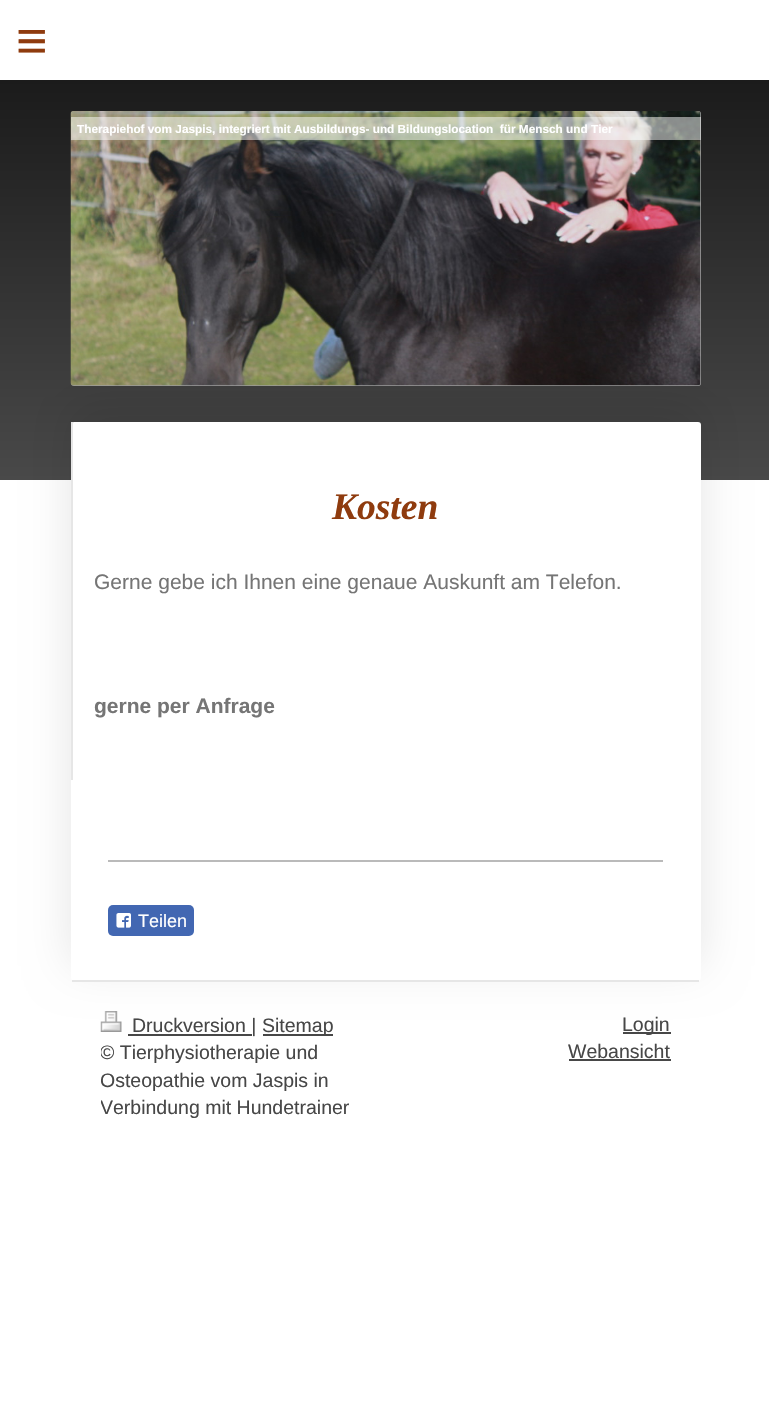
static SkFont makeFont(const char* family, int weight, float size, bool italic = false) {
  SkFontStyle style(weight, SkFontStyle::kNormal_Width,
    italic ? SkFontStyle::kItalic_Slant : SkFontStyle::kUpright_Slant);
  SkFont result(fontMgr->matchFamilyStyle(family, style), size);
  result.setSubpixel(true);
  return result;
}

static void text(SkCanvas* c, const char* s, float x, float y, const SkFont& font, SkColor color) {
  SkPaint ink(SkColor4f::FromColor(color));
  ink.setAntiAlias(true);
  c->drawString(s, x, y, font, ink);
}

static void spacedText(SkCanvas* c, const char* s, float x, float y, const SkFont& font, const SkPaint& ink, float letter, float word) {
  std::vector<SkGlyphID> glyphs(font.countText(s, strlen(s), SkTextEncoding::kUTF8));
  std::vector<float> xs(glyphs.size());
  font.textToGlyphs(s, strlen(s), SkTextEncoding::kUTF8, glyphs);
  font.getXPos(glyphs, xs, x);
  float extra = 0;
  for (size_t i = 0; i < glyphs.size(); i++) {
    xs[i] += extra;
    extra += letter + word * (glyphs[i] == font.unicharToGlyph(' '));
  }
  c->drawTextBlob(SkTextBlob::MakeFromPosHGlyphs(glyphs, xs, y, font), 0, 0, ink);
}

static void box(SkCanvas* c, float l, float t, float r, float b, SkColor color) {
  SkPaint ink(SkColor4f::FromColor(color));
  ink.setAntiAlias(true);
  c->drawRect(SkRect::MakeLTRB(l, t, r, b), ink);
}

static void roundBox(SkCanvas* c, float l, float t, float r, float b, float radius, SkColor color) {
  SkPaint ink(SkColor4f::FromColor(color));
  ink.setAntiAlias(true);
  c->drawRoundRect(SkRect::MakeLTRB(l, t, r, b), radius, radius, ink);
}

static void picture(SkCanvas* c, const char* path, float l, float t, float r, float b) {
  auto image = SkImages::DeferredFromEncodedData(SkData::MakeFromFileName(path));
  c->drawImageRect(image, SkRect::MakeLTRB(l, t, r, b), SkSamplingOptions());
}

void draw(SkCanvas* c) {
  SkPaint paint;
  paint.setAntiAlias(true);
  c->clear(0xffffffff);
  SkFont face1 = makeFont("Liberation Sans", 400, 54);
  paint.setColor(0xff8f3b0e);
  spacedText(c, "≡", 16, 59, face1, paint, 16, 0);
  {
    const SkColor colors[] = {0xff494949, 0xff1b1b1b};
    const float stops[] = {0, 1};
    const SkPoint ends[] = {{0, 480}, {0, 80}};
    paint.setShader(SkGradientShader::MakeLinear(ends, colors, stops, 2, SkTileMode::kClamp));
    paint.setAlpha(255);
  }
  c->drawRect(SkRect::MakeLTRB(0, 80, 769, 480), paint);
  roundBox(c, 71, 111, 701, 386, 3, 0xffa0a0a0);
  picture(c, "img_01.png", 70, 111, 701, 386);
  box(c, 71, 117, 701, 140, 0x80ffffff);
  SkFont face2 = makeFont("Liberation Sans", 700, 11.8f);
  text(c, "Therapiehof vom Jaspis, integriert mit Ausbildungs- und Bildungslocation  für Mensch und Tier", 77, 133, face2, 0xffffffff);
  paint.setShader(nullptr);
  paint.setColor(0x1a000000);
  paint.setMaskFilter(SkMaskFilter::MakeBlur(kNormal_SkBlurStyle, 22.5f));
  c->drawRoundRect(SkRect::MakeLTRB(71, 407, 701, 966), 3, 3, paint);
  paint.setMaskFilter(nullptr);
  roundBox(c, 71, 422, 701, 981, 3, 0xffffffff);
  box(c, 72, 980, 699, 982, 0xffe6e6e6);
  box(c, 71, 422, 73, 780, 0xffe6e6e6);
  SkFont face3 = makeFont("Liberation Serif", 700, 37.5f, true);
  text(c, "Kosten", 332, 519, face3, 0xff8f3b0e);
  SkFont face4 = makeFont("Liberation Sans", 400, 21);
  text(c, "Gerne gebe ich Ihnen eine genaue Auskunft am Telefon.", 94, 589, face4, 0xff757575);
  SkFont face5 = makeFont("Liberation Sans", 700, 21);
  text(c, "gerne per Anfrage", 94, 713, face5, 0xff757575);
  box(c, 108, 860, 663, 862, 0xffbababa);
  roundBox(c, 108, 905, 194, 936, 5, 0xff4267b2);
  picture(c, "img_02.png", 116, 913, 131, 928);
  SkFont face6 = makeFont("Liberation Sans", 400, 18);
  text(c, "Teilen", 138, 927, face6, 0xffffffff);
  picture(c, "img_03.png", 100, 1011, 122, 1032);
  box(c, 128, 1034, 252, 1036, 0xff474747);
  SkFont face7 = makeFont("Liberation Sans", 400, 19.5f);
  text(c, "Druckversion |", 132, 1032, face7, 0xff474747);
  box(c, 263, 1034, 333, 1036, 0xff474747);
  text(c, "Sitemap", 262, 1032, face7, 0xff474747);
  c->save();
  c->clipRect(SkRect::MakeLTRB(101, 1011, 671, 1122));
  text(c, "© Tierphysiotherapie und", 100, 1059, face7, 0xff474747);
  text(c, "Osteopathie vom Jaspis in", 100, 1087, face7, 0xff474747);
  text(c, "Verbindung mit Hundetrainer", 100, 1114, face7, 0xff474747);
  c->restore();
  box(c, 623, 1032, 671, 1034, 0xff474747);
  text(c, "Login", 622, 1031, face7, 0xff474747);
  text(c, "Webansicht", 568, 1058, face7, 0xff474747);
  box(c, 569, 1059, 671, 1061, 0xff474747);
}
